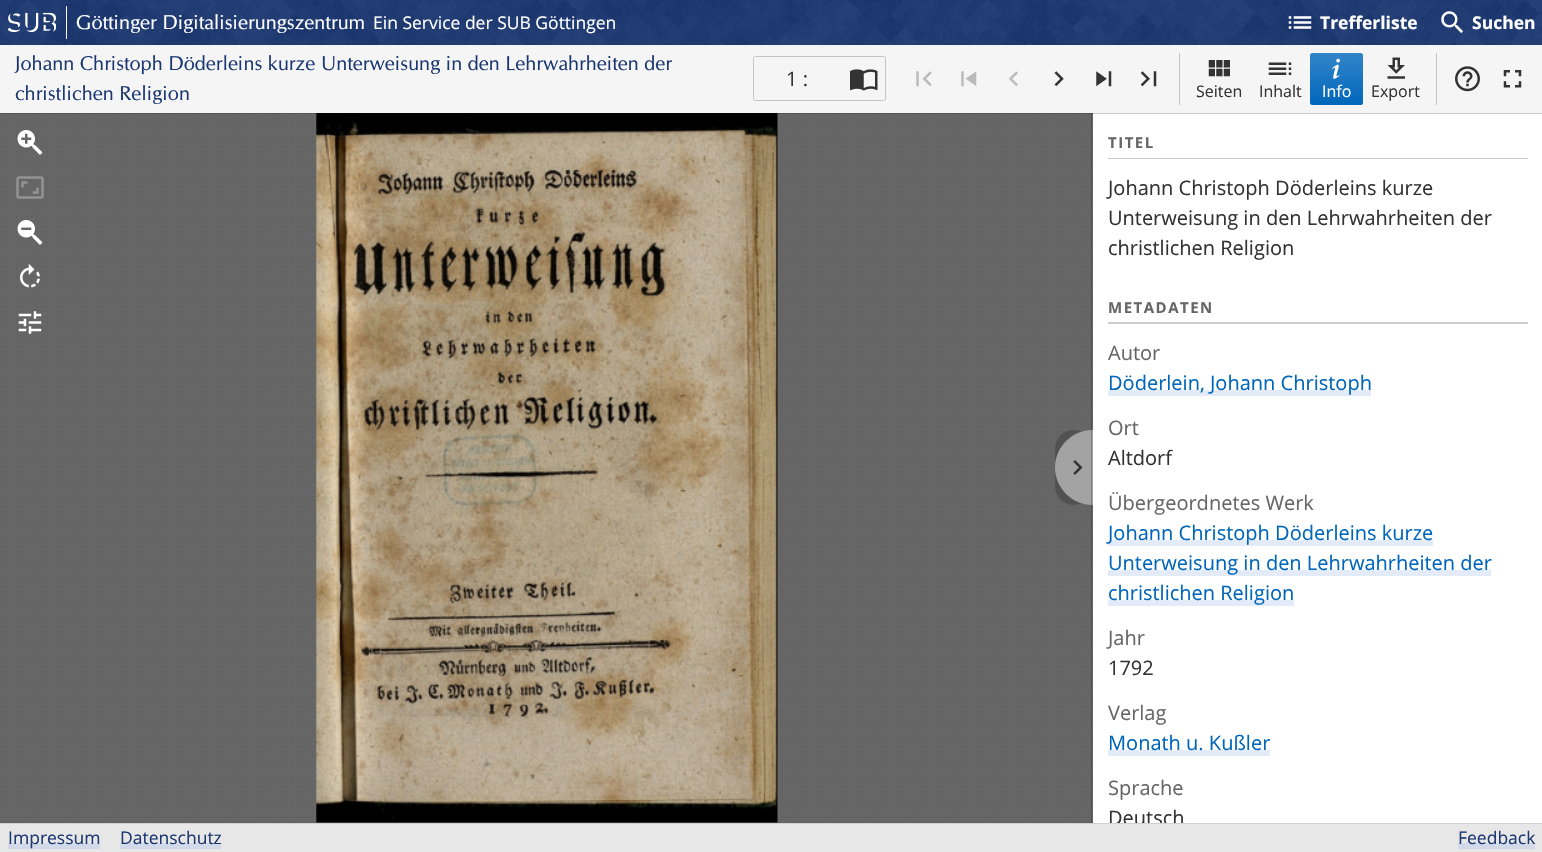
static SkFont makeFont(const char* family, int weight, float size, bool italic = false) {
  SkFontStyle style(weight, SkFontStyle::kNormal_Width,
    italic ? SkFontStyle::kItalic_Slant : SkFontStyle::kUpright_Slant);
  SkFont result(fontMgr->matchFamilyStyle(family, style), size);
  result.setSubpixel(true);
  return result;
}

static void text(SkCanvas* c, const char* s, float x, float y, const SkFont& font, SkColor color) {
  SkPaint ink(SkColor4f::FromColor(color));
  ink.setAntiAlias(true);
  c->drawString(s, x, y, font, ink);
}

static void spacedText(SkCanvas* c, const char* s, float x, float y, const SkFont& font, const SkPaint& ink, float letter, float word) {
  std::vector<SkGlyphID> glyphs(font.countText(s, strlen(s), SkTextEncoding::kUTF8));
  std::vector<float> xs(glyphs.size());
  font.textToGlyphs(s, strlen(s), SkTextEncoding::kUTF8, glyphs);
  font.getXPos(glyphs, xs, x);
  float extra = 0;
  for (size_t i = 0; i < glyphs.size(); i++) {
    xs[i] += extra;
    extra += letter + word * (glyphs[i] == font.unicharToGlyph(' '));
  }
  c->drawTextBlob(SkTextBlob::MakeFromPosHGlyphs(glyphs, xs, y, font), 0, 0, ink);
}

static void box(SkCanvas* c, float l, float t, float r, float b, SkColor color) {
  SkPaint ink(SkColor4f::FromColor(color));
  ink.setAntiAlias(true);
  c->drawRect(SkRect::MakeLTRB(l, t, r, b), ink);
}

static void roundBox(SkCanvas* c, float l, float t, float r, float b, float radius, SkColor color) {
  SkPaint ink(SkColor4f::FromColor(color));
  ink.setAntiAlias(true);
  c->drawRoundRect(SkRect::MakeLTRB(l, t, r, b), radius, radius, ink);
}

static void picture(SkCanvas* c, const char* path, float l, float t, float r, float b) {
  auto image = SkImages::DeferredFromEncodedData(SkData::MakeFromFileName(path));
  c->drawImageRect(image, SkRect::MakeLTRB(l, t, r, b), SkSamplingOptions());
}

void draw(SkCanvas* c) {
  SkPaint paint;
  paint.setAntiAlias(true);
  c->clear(0xffe7e7e7);
  picture(c, "img_01.png", 0, 0, 1542, 45);
  picture(c, "img_02.png", 8, 12, 56, 33);
  SkFont face1 = makeFont("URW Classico", 400, 20);
  text(c, "Göttinger Digitalisierungszentrum", 76, 29, face1, 0xffffffff);
  box(c, 66, 6, 67, 39, 0xffffffff);
  SkFont face2 = makeFont("Open Sans", 400, 17.5f);
  text(c, "Ein Service der SUB Göttingen", 373, 29, face2, 0xffffffff);
  picture(c, "img_03.png", 1288, 16, 1312, 29);
  SkFont face3 = makeFont("Open Sans", 700, 17.5f);
  text(c, "Trefferliste", 1320, 29, face3, 0xffffffff);
  picture(c, "img_04.png", 1441, 11, 1463, 33);
  text(c, "Suchen", 1472, 29, face3, 0xffffffff);
  box(c, 0, 113, 1093, 823, 0xff666666);
  picture(c, "img_05.png", 1, 116, 1093, 822);
  picture(c, "img_24.png", 316, 113, 778, 823);
  c->save();
  c->clipPath(SkPathBuilder(SkPathFillType::kEvenOdd).moveTo(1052, 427).lineTo(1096, 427).lineTo(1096, 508).lineTo(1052, 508).close().moveTo(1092.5f, 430).lineTo(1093, 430).lineTo(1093, 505).lineTo(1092.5f, 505).cubicTo(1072, 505, 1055, 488, 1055, 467.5f).cubicTo(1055, 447, 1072, 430, 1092.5f, 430).close().detach(), true);
  paint.setColor(0x33000000);
  paint.setMaskFilter(SkMaskFilter::MakeBlur(kNormal_SkBlurStyle, 0.5f));
  c->drawRoundRect(SkRect::MakeLTRB(1055, 430, 1093, 505), 38, 38, paint);
  paint.setMaskFilter(nullptr);
  c->restore();
  paint.setColor(0x66ffffff);
  c->drawPath(SkPathBuilder().moveTo(1092.5f, 430).lineTo(1093, 430).lineTo(1093, 505).lineTo(1092.5f, 505).cubicTo(1072, 505, 1055, 488, 1055, 467.5f).cubicTo(1055, 447, 1072, 430, 1092.5f, 430).close().detach(), paint);
  paint.setColor(0x33000000);
  c->drawPath(SkPathBuilder().moveTo(1091, 113).lineTo(1091, 823).lineTo(1541, 823).lineTo(1541, 822).lineTo(1092, 822).lineTo(1092, 113).close().detach(), paint);
  box(c, 1093, 113, 1542, 823, 0xffffffff);
  c->drawPath(SkPathBuilder().moveTo(0, 112).lineTo(0, 114).lineTo(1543, 114).lineTo(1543, 46).lineTo(1542, 46).lineTo(1542, 112).close().detach(), paint);
  box(c, 0, 45, 1542, 113, 0xfff5f5f5);
  text(c, "Johann Christoph Döderleins kurze Unterweisung in den Lehrwahrheiten der", 15, 70, face1, 0xff1a3771);
  text(c, "christlichen Religion", 15, 100, face1, 0xff1a3771);
  paint.setStyle(SkPaint::kStroke_Style);
  paint.setStrokeWidth(1);
  paint.setColor(0xffc4c4c4);
  c->drawRoundRect(SkRect::MakeLTRB(753.5f, 56.5f, 885.5f, 100.5f), 2, 2, paint);
  SkFont face4 = makeFont("Open Sans", 400, 20);
  text(c, "1 :", 786, 86, face4, 0xff333333);
  picture(c, "img_06.png", 850, 69, 878, 91);
  picture(c, "img_07.png", 916, 71, 932, 87);
  picture(c, "img_08.png", 961, 71, 977, 87);
  picture(c, "img_09.png", 1009, 71, 1018, 86);
  picture(c, "img_10.png", 1054, 71, 1064, 87);
  picture(c, "img_11.png", 1096, 71, 1112, 87);
  picture(c, "img_12.png", 1140, 71, 1157, 87);
  box(c, 1179, 53, 1180, 105, 0xffc4c4c4);
  picture(c, "img_13.png", 1208, 60, 1230, 77);
  SkFont face5 = makeFont("Open Sans", 400, 16);
  text(c, "Seiten", 1196, 97, face5, 0xff333333);
  picture(c, "img_14.png", 1268, 62, 1292, 75);
  text(c, "Inhalt", 1259, 97, face5, 0xff333333);
  roundBox(c, 1310, 53, 1363, 105, 2.5f, 0xff0066bb);
  paint.setStyle(SkPaint::kFill_Style);
  {
    const SkColor colors[] = {0x33ffffff, 0x00ffffff};
    const float stops[] = {0, 1};
    const SkPoint ends[] = {{1336, 53}, {1336, 105}};
    paint.setShader(SkGradientShader::MakeLinear(ends, colors, stops, 2, SkTileMode::kClamp));
    paint.setAlpha(255);
  }
  c->drawRoundRect(SkRect::MakeLTRB(1310, 53, 1363, 105), 2.5f, 2.5f, paint);
  picture(c, "img_15.png", 1332, 58, 1340, 79);
  text(c, "Info", 1322, 97, face5, 0xffffffff);
  picture(c, "img_16.png", 1387, 57, 1405, 79);
  text(c, "Export", 1371, 97, face5, 0xff333333);
  box(c, 1436, 53, 1437, 105, 0xffc4c4c4);
  picture(c, "img_17.png", 1455, 66, 1480, 92);
  picture(c, "img_18.png", 1503, 70, 1522, 88);
  picture(c, "img_19.png", 17, 130, 43, 155);
  picture(c, "img_20.png", 16, 176, 44, 199);
  picture(c, "img_21.png", 17, 220, 43, 245);
  picture(c, "img_22.png", 20, 263, 40, 288);
  picture(c, "img_23.png", 18, 311, 42, 334);
  picture(c, "img_25.png", 1073, 460, 1083, 475);
  paint.setShader(nullptr);
  paint.setColor(0xffcccccc);
  c->drawPath(SkPathBuilder().moveTo(1108, 158).lineTo(1108, 159).lineTo(1528, 159).lineTo(1528, 129).lineTo(1528, 158).close().detach(), paint);
  SkFont face6 = makeFont("Open Sans", 700, 15);
  paint.setColor(0xff666666);
  spacedText(c, "TITEL", 1108, 148, face6, paint, 1.5f, 0);
  text(c, "Johann Christoph Döderleins kurze", 1108, 195, face4, 0xff333333);
  text(c, "Unterweisung in den Lehrwahrheiten der", 1108, 225, face4, 0xff333333);
  text(c, "christlichen Religion", 1108, 255, face4, 0xff333333);
  paint.setColor(0xffcccccc);
  c->drawPath(SkPathBuilder().moveTo(1108, 322).lineTo(1108, 324).lineTo(1528, 324).lineTo(1528, 294).lineTo(1528, 322).close().detach(), paint);
  paint.setColor(0xff666666);
  spacedText(c, "METADATEN", 1108, 313, face6, paint, 1.5f, 0);
  text(c, "Autor", 1108, 360, face4, 0xff666666);
  box(c, 1108, 390, 1371, 396, 0xffe3eaf8);
  text(c, "Döderlein, Johann Christoph", 1108, 390, face4, 0xff0066bb);
  text(c, "Ort", 1108, 435, face4, 0xff666666);
  text(c, "Altdorf", 1108, 465, face4, 0xff333333);
  text(c, "Übergeordnetes Werk", 1108, 510, face4, 0xff666666);
  box(c, 1108, 540, 1433, 546, 0xffe3eaf8);
  text(c, "Johann Christoph Döderleins kurze", 1108, 540, face4, 0xff0066bb);
  box(c, 1108, 570, 1491, 576, 0xffe3eaf8);
  text(c, "Unterweisung in den Lehrwahrheiten der", 1108, 570, face4, 0xff0066bb);
  box(c, 1108, 600, 1294, 606, 0xffe3eaf8);
  text(c, "christlichen Religion", 1108, 600, face4, 0xff0066bb);
  text(c, "Jahr", 1108, 645, face4, 0xff666666);
  text(c, "1792", 1108, 675, face4, 0xff333333);
  text(c, "Verlag", 1108, 720, face4, 0xff666666);
  box(c, 1108, 750, 1270, 756, 0xffe3eaf8);
  text(c, "Monath u. Kußler", 1108, 750, face4, 0xff0066bb);
  text(c, "Sprache", 1108, 795, face4, 0xff666666);
  c->save();
  c->clipRect(SkRect::MakeLTRB(1093, 113, 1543, 823));
  text(c, "Deutsch", 1108, 825, face4, 0xff333333);
  c->restore();
  box(c, 0, 823, 1542, 824, 0xffd0d0d0);
  box(c, 8, 843, 100, 849, 0xffd2d9e8);
  text(c, "Impressum", 8, 844, face2, 0xff1a3771);
  box(c, 120, 843, 221, 849, 0xffd2d9e8);
  text(c, "Datenschutz", 120, 844, face2, 0xff1a3771);
  box(c, 1458, 843, 1535, 849, 0xffd2d9e8);
  text(c, "Feedback", 1458, 844, face2, 0xff1a3771);
}
